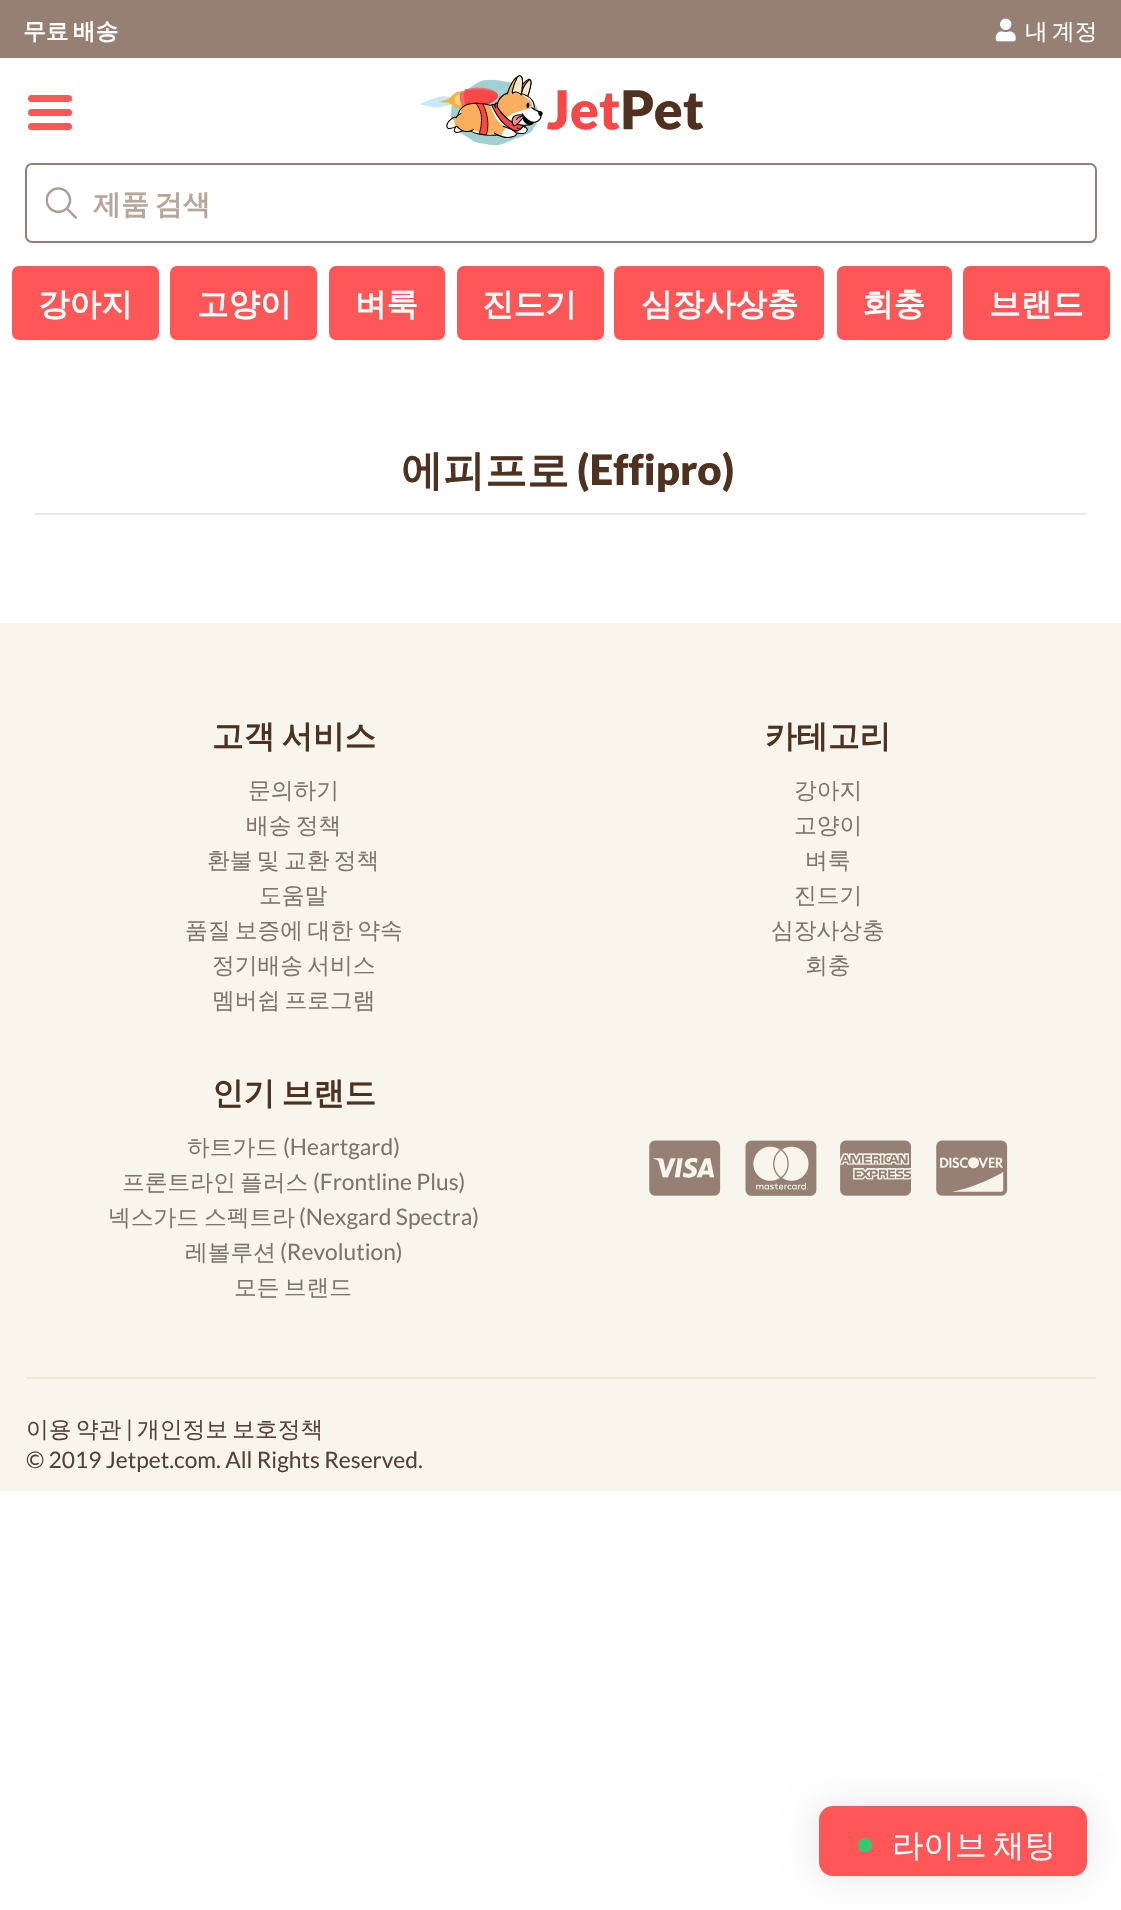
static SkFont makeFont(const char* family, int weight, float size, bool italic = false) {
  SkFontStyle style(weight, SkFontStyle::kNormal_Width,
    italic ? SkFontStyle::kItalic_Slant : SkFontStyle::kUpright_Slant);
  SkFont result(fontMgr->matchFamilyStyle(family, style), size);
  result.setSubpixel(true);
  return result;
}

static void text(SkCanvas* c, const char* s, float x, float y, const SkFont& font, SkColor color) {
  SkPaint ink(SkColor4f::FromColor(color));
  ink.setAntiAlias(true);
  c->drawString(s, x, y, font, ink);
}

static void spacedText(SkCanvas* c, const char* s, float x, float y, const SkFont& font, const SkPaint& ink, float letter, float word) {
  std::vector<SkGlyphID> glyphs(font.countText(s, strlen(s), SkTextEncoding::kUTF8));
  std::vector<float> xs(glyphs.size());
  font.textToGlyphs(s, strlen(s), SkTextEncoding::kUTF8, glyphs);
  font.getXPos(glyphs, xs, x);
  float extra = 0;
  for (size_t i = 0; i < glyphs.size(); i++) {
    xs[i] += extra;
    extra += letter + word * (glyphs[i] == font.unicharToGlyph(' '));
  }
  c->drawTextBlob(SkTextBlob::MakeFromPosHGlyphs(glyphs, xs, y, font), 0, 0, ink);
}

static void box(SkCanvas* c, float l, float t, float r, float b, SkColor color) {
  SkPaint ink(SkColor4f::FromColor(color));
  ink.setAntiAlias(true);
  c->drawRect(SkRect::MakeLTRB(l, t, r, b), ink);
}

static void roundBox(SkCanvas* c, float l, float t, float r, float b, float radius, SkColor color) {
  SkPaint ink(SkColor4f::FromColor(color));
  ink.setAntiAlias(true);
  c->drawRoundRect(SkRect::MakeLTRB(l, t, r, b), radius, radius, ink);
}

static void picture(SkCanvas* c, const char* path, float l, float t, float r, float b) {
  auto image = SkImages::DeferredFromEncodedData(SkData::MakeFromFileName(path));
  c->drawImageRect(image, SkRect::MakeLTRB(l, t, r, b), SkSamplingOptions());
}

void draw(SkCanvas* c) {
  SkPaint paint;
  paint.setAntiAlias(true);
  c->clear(0xffffffff);
  box(c, 0, 0, 1121, 58, 0xff958073);
  SkFont face1 = makeFont("WenQuanYi Zen Hei", 700, 22.75f);
  paint.setColor(0xffffffff);
  spacedText(c, "무료 배송", 23, 39, face1, paint, 0, -2.5f);
  picture(c, "img_01.png", 995, 18, 1016, 42);
  SkFont face2 = makeFont("WenQuanYi Zen Hei", 500, 22.75f);
  spacedText(c, "내 계정", 1025, 39, face2, paint, 0, -2.5f);
  roundBox(c, 28, 95, 72, 102, 3.5f, 0xffff5757);
  roundBox(c, 28, 109, 72, 116, 3.5f, 0xffff5757);
  roundBox(c, 28, 123, 72, 130, 3.5f, 0xffff5757);
  picture(c, "img_02.png", 420, 75, 704, 145);
  paint.setStyle(SkPaint::kStroke_Style);
  paint.setStrokeWidth(2);
  paint.setColor(0xff958073);
  c->drawRoundRect(SkRect::MakeLTRB(26, 164, 1096, 242), 6, 6, paint);
  picture(c, "img_03.png", 46, 187, 77, 219);
  SkFont face3 = makeFont("WenQuanYi Zen Hei", 700, 28);
  paint.setStyle(SkPaint::kFill_Style);
  paint.setColor(0xffb6a69b);
  spacedText(c, "제품 검색", 93, 214, face3, paint, 0, -3);
  roundBox(c, 12, 266, 159, 340, 7, 0xffff5757);
  SkFont face4 = makeFont("WenQuanYi Zen Hei", 700, 31.5f);
  text(c, "강아지", 38, 315, face4, 0xffffffff);
  roundBox(c, 170, 266, 317, 340, 7, 0xffff5757);
  text(c, "고양이", 197, 315, face4, 0xffffffff);
  roundBox(c, 329, 266, 445, 340, 7, 0xffff5757);
  text(c, "벼룩", 355, 315, face4, 0xffffffff);
  roundBox(c, 457, 266, 604, 340, 7, 0xffff5757);
  text(c, "진드기", 482, 315, face4, 0xffffffff);
  roundBox(c, 614, 266, 824, 340, 7, 0xffff5757);
  text(c, "심장사상충", 641, 315, face4, 0xffffffff);
  roundBox(c, 837, 266, 952, 340, 7, 0xffff5757);
  text(c, "회충", 862, 315, face4, 0xffffffff);
  roundBox(c, 963, 266, 1110, 340, 7, 0xffff5757);
  text(c, "브랜드", 989, 315, face4, 0xffffffff);
  box(c, 35, 513, 1087, 515, 0xffe9e9e9);
  SkFont face5 = makeFont("WenQuanYi Zen Hei", 700, 42);
  text(c, "에피프로", 401, 485, face5, 0xff4f311f);
  SkFont face6 = makeFont("Lato", 900, 42);
  text(c, "(Effipro)", 577, 485, face6, 0xff4f311f);
  box(c, 0, 623, 1121, 1491, 0xfff8f5ec);
  paint.setColor(0xff4f311f);
  spacedText(c, "고객 서비스", 212, 747, face4, paint, 0, -3);
  text(c, "문의하기", 248, 798, face2, 0xff7f746d);
  paint.setColor(0xff7f746d);
  spacedText(c, "배송 정책", 246, 833, face2, paint, 0, -2.5f);
  spacedText(c, "환불 및 교환 정책", 207, 868, face2, paint, 0, -2.5f);
  text(c, "도움말", 259, 903, face2, 0xff7f746d);
  spacedText(c, "품질 보증에 대한 약속", 185, 938, face2, paint, 0, -2.5f);
  spacedText(c, "정기배송 서비스", 212, 973, face2, paint, 0, -2.5f);
  spacedText(c, "멤버쉽 프로그램", 212, 1008, face2, paint, 0, -2.5f);
  text(c, "카테고리", 765, 747, face4, 0xff4f311f);
  text(c, "강아지", 794, 798, face2, 0xff7f746d);
  text(c, "고양이", 794, 833, face2, 0xff7f746d);
  text(c, "벼룩", 805, 868, face2, 0xff7f746d);
  text(c, "진드기", 794, 903, face2, 0xff7f746d);
  text(c, "심장사상충", 771, 938, face2, 0xff7f746d);
  text(c, "회충", 805, 973, face2, 0xff7f746d);
  paint.setColor(0xff4f311f);
  spacedText(c, "인기 브랜드", 212, 1104, face4, paint, 0, -3);
  text(c, "하트가드", 187, 1155, face2, 0xff7f746d);
  SkFont face7 = makeFont("Lato", 400, 22.75f);
  text(c, "(Heartgard)", 283, 1155, face7, 0xff7f746d);
  text(c, "프론트라인", 122, 1190, face2, 0xff7f746d);
  text(c, "플러스", 240, 1190, face2, 0xff7f746d);
  text(c, "(Frontline Plus)", 313, 1190, face7, 0xff7f746d);
  text(c, "넥스가드", 108, 1225, face2, 0xff7f746d);
  text(c, "스펙트라", 204, 1225, face2, 0xff7f746d);
  text(c, "(Nexgard Spectra)", 299, 1225, face7, 0xff7f746d);
  text(c, "레볼루션", 185, 1260, face2, 0xff7f746d);
  text(c, "(Revolution)", 280, 1260, face7, 0xff7f746d);
  paint.setColor(0xff7f746d);
  spacedText(c, "모든 브랜드", 234, 1295, face2, paint, 0, -2.5f);
  picture(c, "img_04.png", 649, 1140, 721, 1196);
  picture(c, "img_05.png", 745, 1140, 817, 1196);
  picture(c, "img_06.png", 840, 1140, 911, 1196);
  picture(c, "img_07.png", 936, 1140, 1008, 1196);
  box(c, 26, 1377, 1096, 1379, 0xfff2e6cf);
  paint.setColor(0xff564137);
  spacedText(c, "이용 약관", 26, 1437, face2, paint, 0, -2.5f);
  text(c, "|", 126, 1437, face7, 0xff564137);
  spacedText(c, "개인정보 보호정책", 137, 1437, face2, paint, 0, -2.5f);
  text(c, "© 2019 Jetpet.com. All Rights Reserved.", 26, 1468, face7, 0xff564137);
  paint.setColor(0x1a000000);
  paint.setMaskFilter(SkMaskFilter::MakeBlur(kNormal_SkBlurStyle, 17.5f));
  c->drawRoundRect(SkRect::MakeLTRB(819, 1806, 1087, 1876), 14, 14, paint);
  paint.setMaskFilter(nullptr);
  roundBox(c, 819, 1806, 1087, 1876, 14, 0xffff5757);
  paint.setColor(0xff2ecc71);
  c->drawCircle(865, 1845, 10.5f, paint);
  paint.setStyle(SkPaint::kStroke_Style);
  paint.setStrokeWidth(7);
  paint.setColor(0xffff5757);
  c->drawCircle(865, 1845, 10.5f, paint);
  SkFont face8 = makeFont("WenQuanYi Zen Hei", 500, 31.5f);
  paint.setStyle(SkPaint::kFill_Style);
  paint.setColor(0xffffffff);
  spacedText(c, "라이브 채팅", 892, 1856, face8, paint, 0, -3);
}
